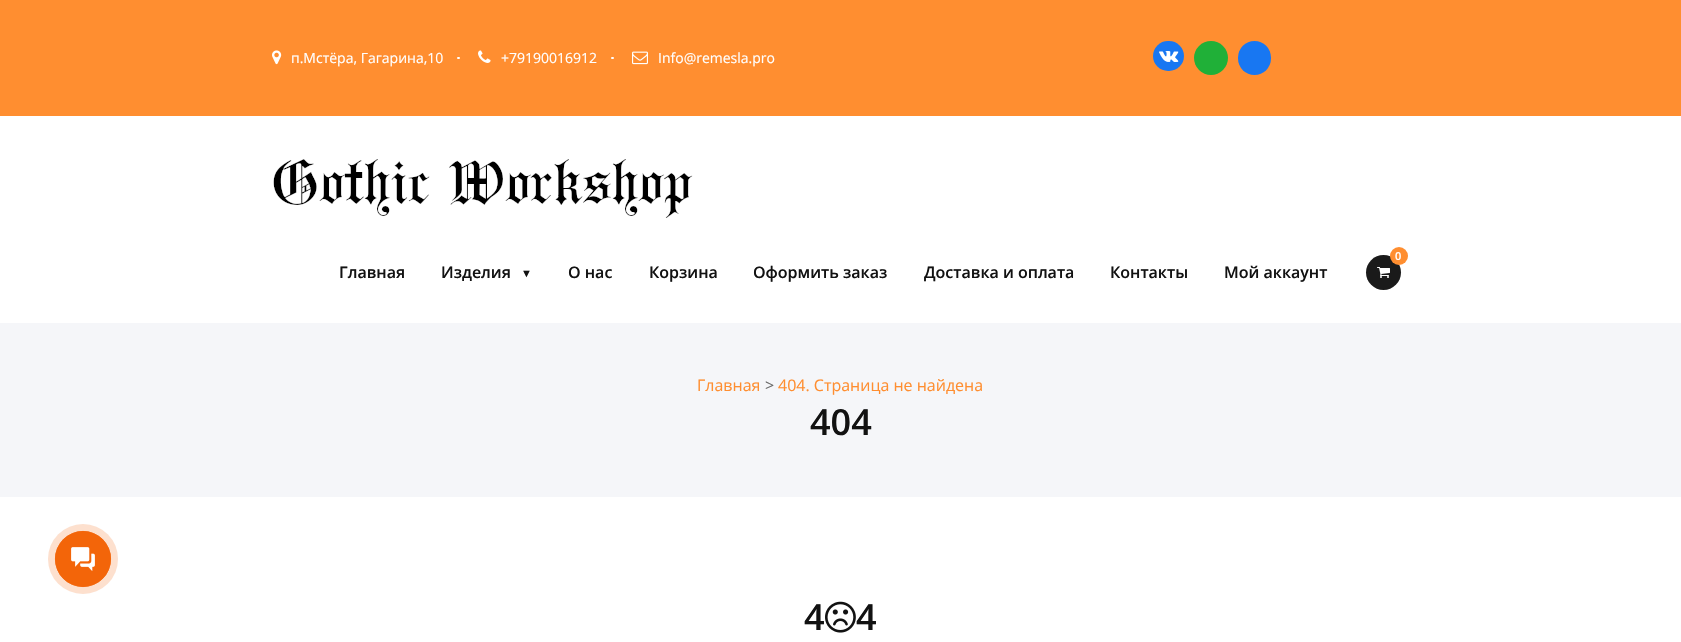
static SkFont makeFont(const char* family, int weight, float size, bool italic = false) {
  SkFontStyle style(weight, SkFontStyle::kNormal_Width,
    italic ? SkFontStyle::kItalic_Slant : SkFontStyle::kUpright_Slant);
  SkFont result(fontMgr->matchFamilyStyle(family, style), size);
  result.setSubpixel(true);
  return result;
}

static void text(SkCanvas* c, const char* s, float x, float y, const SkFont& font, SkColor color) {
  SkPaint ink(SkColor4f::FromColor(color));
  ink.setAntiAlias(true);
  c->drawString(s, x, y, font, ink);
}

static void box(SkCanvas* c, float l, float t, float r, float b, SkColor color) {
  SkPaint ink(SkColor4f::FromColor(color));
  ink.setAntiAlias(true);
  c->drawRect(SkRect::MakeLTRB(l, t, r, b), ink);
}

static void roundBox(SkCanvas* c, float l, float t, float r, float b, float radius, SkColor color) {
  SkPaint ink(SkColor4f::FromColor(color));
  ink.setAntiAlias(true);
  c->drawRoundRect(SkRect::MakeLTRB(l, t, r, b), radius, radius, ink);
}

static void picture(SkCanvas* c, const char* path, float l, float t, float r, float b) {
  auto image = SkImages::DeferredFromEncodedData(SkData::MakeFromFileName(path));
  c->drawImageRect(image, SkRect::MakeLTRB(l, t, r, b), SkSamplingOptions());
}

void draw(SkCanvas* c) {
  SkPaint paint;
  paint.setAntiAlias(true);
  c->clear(0xffffffff);
  paint.setColor(0xfffde0ce);
  c->drawCircle(83, 559, 35, paint);
  paint.setStyle(SkPaint::kStroke_Style);
  paint.setStrokeWidth(0.8f);
  paint.setColor(0xfff36509);
  c->drawCircle(83, 559, 27.6f, paint);
  paint.setStyle(SkPaint::kFill_Style);
  c->drawCircle(83, 559, 28, paint);
  picture(c, "img_01.png", 71, 547, 95, 571);
  box(c, 0, 0, 1681, 116, 0xffff8e30);
  picture(c, "img_02.png", 272, 50, 282, 65);
  SkFont face1 = makeFont("Open Sans", 400, 14);
  text(c, "п.Мстёра, Гагарина,10", 291, 63, face1, 0xffffffff);
  roundBox(c, 457, 57, 460, 59, 1, 0xffffffff);
  picture(c, "img_03.png", 478, 50, 491, 63);
  text(c, "+79190016912", 501, 63, face1, 0xffffffff);
  roundBox(c, 611, 57, 614, 59, 1, 0xffffffff);
  picture(c, "img_04.png", 632, 51, 648, 65);
  text(c, "Info@remesla.pro", 658, 63, face1, 0xffffffff);
  roundBox(c, 1153, 41, 1184, 71, 15, 0xff1877f2);
  picture(c, "img_05.png", 1159, 51, 1179, 62);
  paint.setColor(0xff20b038);
  c->drawCircle(1211, 58, 17, paint);
  roundBox(c, 1238, 41, 1271, 75, 16.5f, 0xff1877f2);
  picture(c, "img_06.png", 273, 159, 693, 218);
  paint.setColor(0xff1a1a1a);
  c->drawCircle(1383.5f, 272.5f, 17.5f, paint);
  paint.setColor(0xffff8e30);
  c->drawCircle(1399, 256, 9, paint);
  SkFont face2 = makeFont("Open Sans", 600, 11);
  text(c, "0", 1395, 260, face2, 0xffffffff);
  picture(c, "img_07.png", 1377, 267, 1390, 278);
  SkFont face3 = makeFont("Open Sans", 600, 16);
  text(c, "Главная", 339, 278, face3, 0xff121212);
  text(c, "Изделия", 441, 278, face3, 0xff121212);
  SkFont face4 = makeFont("Liberation Serif", 400, 11);
  text(c, "▼", 521, 277, face4, 0xff121212);
  text(c, "О нас", 568, 278, face3, 0xff121212);
  text(c, "Корзина", 649, 278, face3, 0xff121212);
  text(c, "Оформить заказ", 753, 278, face3, 0xff121212);
  text(c, "Доставка и оплата", 924, 278, face3, 0xff121212);
  text(c, "Контакты", 1110, 278, face3, 0xff121212);
  text(c, "Мой аккаунт", 1224, 278, face3, 0xff121212);
  box(c, 0, 323, 1681, 497, 0xfff5f6f9);
  SkFont face5 = makeFont("Open Sans", 400, 16);
  text(c, "Главная", 697, 391, face5, 0xffff8e30);
  text(c, ">", 765, 391, face5, 0xff6a6a6a);
  text(c, "404. Страница не найдена", 778, 391, face5, 0xffff8e30);
  SkFont face6 = makeFont("Open Sans", 600, 36);
  text(c, "404", 810, 435, face6, 0xff121212);
  text(c, "4", 804, 630, face6, 0xff121212);
  picture(c, "img_08.png", 825, 601, 856, 633);
  text(c, "4", 856, 630, face6, 0xff121212);
}
